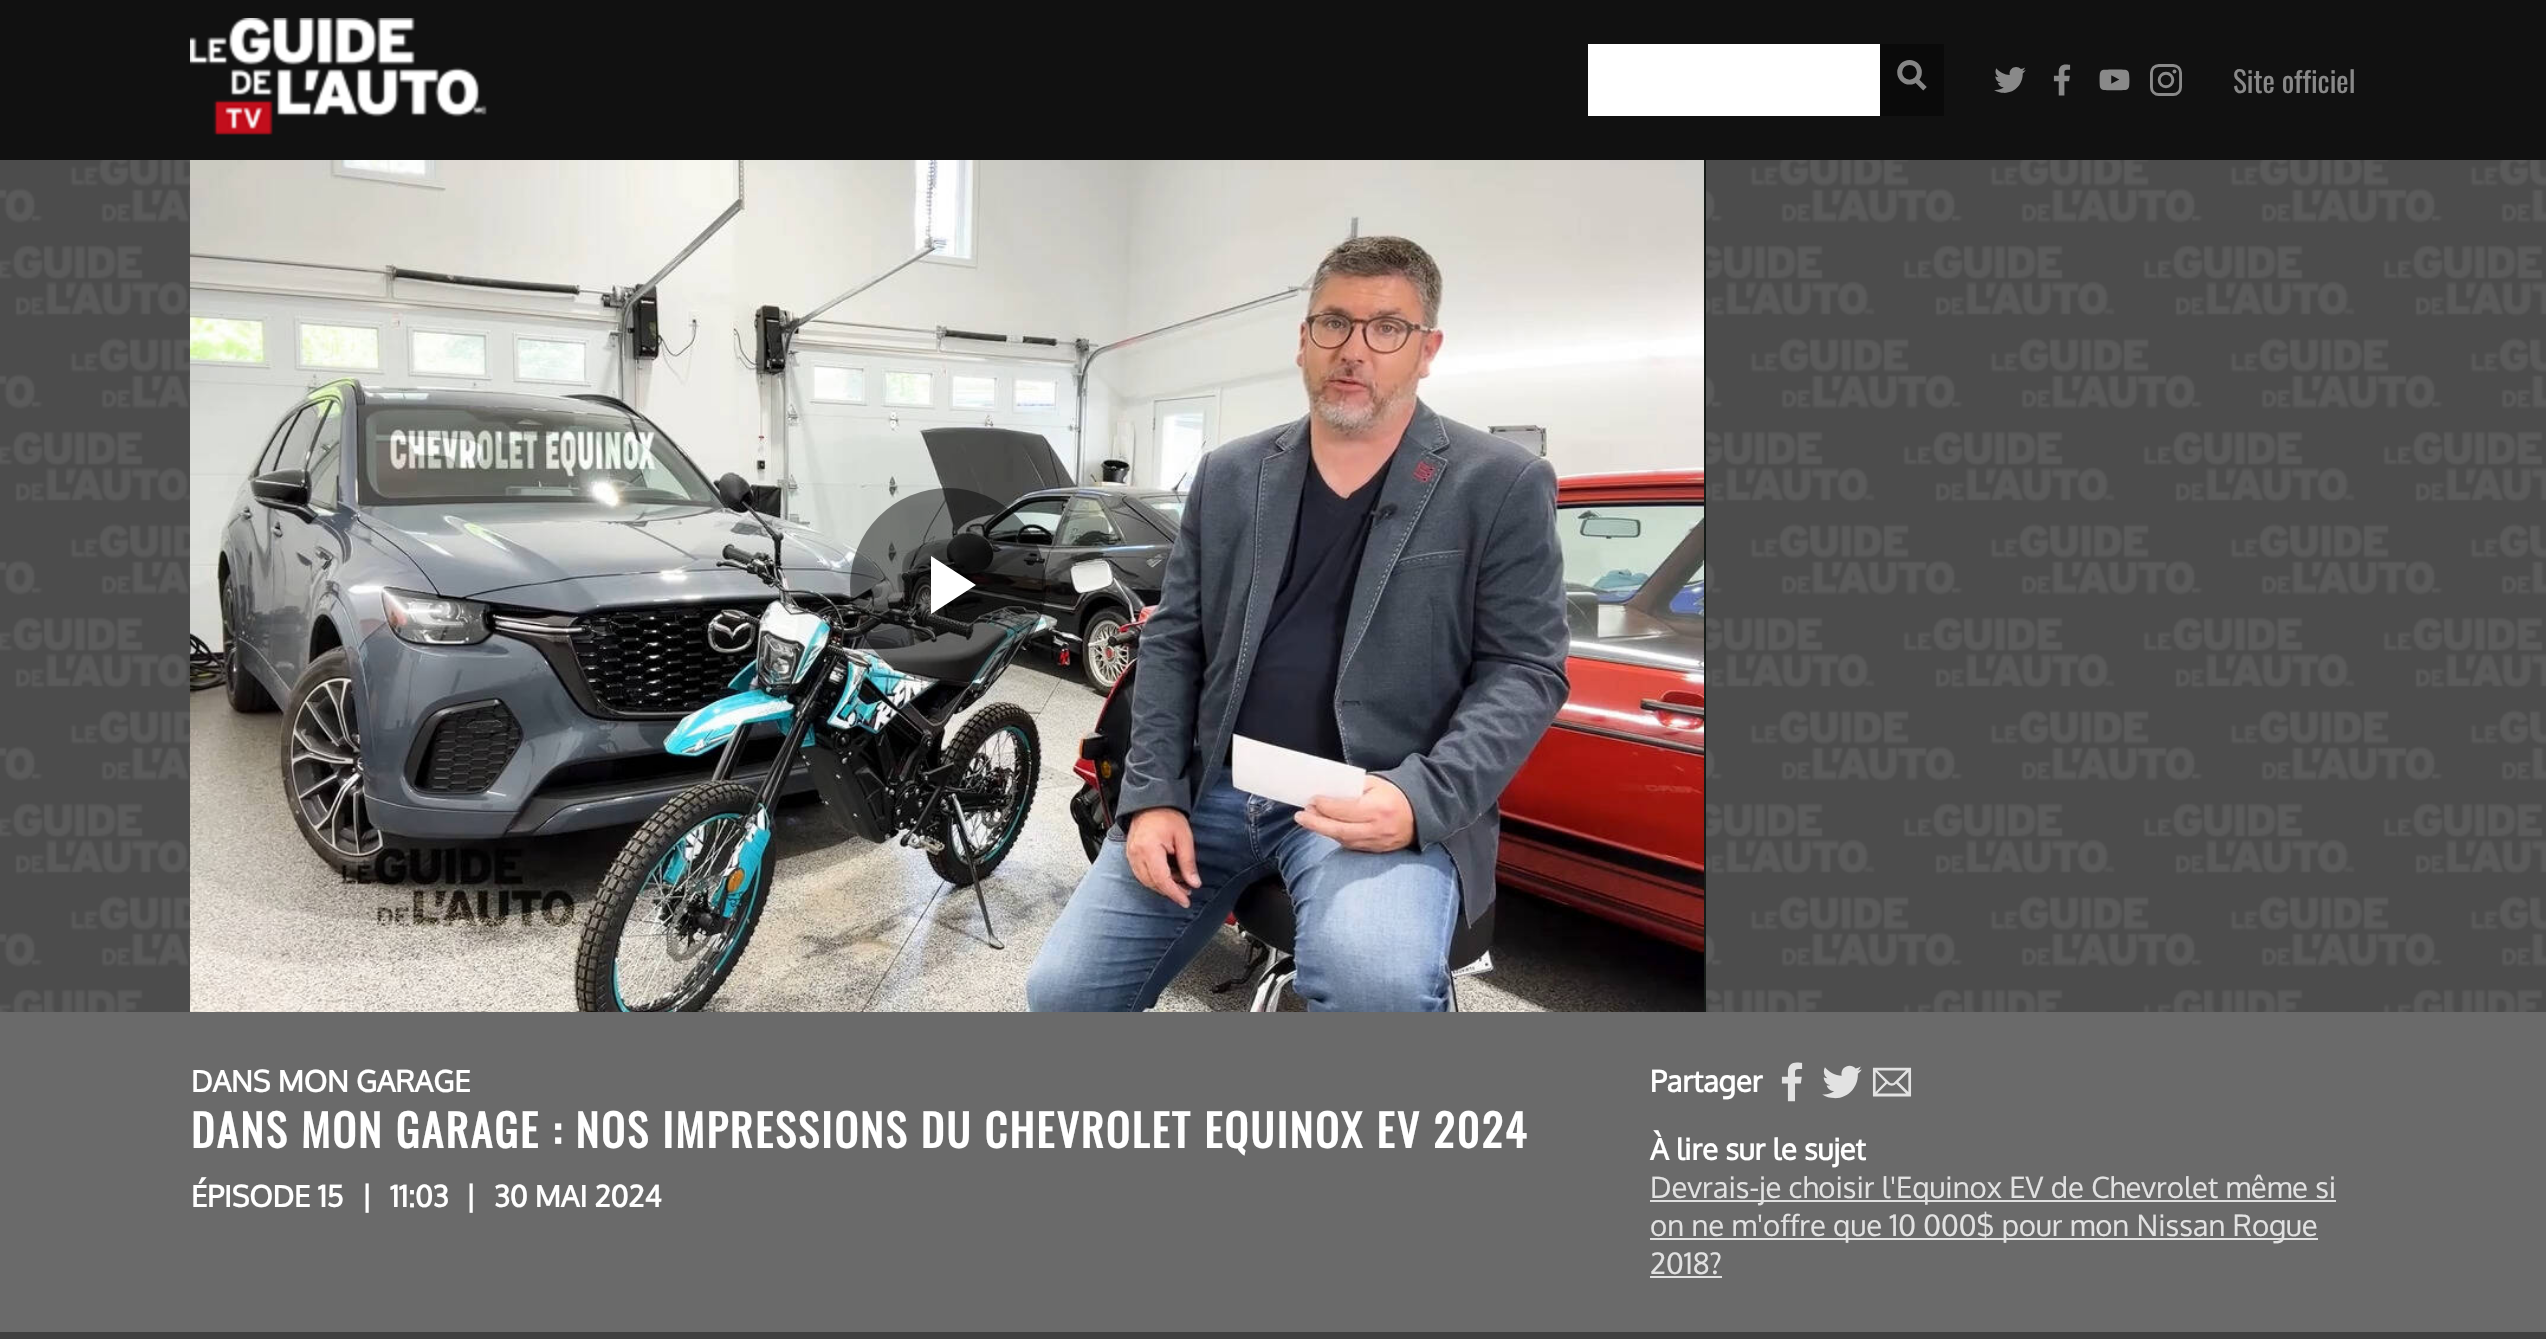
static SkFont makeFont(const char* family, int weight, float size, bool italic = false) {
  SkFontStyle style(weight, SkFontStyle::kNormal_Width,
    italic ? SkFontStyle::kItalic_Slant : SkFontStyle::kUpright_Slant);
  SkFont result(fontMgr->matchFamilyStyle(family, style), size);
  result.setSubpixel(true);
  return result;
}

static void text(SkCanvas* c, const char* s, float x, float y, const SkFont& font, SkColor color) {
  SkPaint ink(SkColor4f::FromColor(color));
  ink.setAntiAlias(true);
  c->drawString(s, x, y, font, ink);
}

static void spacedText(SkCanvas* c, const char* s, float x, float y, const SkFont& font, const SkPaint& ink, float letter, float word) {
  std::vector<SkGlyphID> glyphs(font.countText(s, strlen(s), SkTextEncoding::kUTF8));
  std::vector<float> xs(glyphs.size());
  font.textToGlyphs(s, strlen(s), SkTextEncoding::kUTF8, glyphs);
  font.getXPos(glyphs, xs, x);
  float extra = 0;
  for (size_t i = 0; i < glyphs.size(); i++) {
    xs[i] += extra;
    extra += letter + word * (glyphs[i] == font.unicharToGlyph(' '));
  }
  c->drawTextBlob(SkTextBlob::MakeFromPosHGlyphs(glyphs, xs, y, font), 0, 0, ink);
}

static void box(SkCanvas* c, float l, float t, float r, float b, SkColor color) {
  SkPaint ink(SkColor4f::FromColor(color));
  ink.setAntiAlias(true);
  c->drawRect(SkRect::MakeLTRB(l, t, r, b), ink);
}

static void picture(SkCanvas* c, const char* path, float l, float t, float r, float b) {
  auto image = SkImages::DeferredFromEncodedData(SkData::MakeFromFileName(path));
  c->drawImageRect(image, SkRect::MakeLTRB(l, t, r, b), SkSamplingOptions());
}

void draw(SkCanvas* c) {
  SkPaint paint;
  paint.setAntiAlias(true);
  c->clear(0xffffffff);
  box(c, 0, 0, 2546, 160, 0xff111111);
  picture(c, "img_01.png", 190, 18, 487, 135);
  box(c, 1588, 44, 1880, 116, 0xffffffff);
  box(c, 1880, 44, 1944, 116, 0xff0a0a0a);
  picture(c, "img_02.png", 1897, 60, 1927, 91);
  picture(c, "img_03.png", 1994, 67, 2026, 93);
  picture(c, "img_04.png", 2053, 64, 2071, 96);
  picture(c, "img_05.png", 2099, 69, 2130, 91);
  picture(c, "img_06.png", 2150, 64, 2182, 96);
  SkFont face1 = makeFont("Oswald", 400, 29.3f);
  text(c, "Site officiel", 2233, 93, face1, 0xff888888);
  picture(c, "img_07.png", 0, 160, 2546, 1012);
  box(c, 1704, 160, 1706, 1012, 0xff151b17);
  picture(c, "img_08.png", 190, 160, 1704, 1012);
  paint.setColor(0x73000000);
  c->drawCircle(948, 586, 98, paint);
  paint.setColor(0xffffffff);
  c->drawPath(SkPathBuilder().moveTo(931, 556).lineTo(931, 614).lineTo(976, 585).close().detach(), paint);
  box(c, 0, 1012, 2546, 1332, 0xff6a6a6a);
  SkFont face2 = makeFont("Oxygen", 700, 29.3f);
  text(c, "DANS MON GARAGE", 191, 1092, face2, 0xffffffff);
  SkFont face3 = makeFont("Oswald", 700, 44);
  spacedText(c, "DANS MON GARAGE : NOS IMPRESSIONS DU CHEVROLET EQUINOX EV 2024", 191, 1148, face3, paint, 2.2f, 0);
  text(c, "ÉPISODE 15", 191, 1207, face2, 0xffffffff);
  text(c, "|", 361, 1207, face2, 0xffffffff);
  text(c, "11:03", 390, 1207, face2, 0xffffffff);
  text(c, "|", 465, 1207, face2, 0xffffffff);
  text(c, "30 MAI 2024", 494, 1207, face2, 0xffffffff);
  text(c, "Partager", 1650, 1092, face2, 0xffffffff);
  picture(c, "img_09.png", 1781, 1062, 1803, 1102);
  picture(c, "img_10.png", 1822, 1065, 1862, 1099);
  picture(c, "img_11.png", 1872, 1067, 1912, 1097);
  text(c, "À lire sur le sujet", 1650, 1160, face2, 0xffffffff);
  box(c, 1650, 1200, 2336, 1202, 0xffe1e1e1);
  SkFont face4 = makeFont("Oxygen", 400, 29.3f);
  text(c, "Devrais-je choisir l'Equinox EV de Chevrolet même si", 1650, 1198, face4, 0xffe1e1e1);
  box(c, 1650, 1238, 2318, 1240, 0xffe1e1e1);
  text(c, "on ne m'offre que 10 000$ pour mon Nissan Rogue", 1650, 1236, face4, 0xffe1e1e1);
  text(c, "2018?", 1650, 1274, face4, 0xffe1e1e1);
  box(c, 1650, 1276, 1722, 1278, 0xffe1e1e1);
  {
    const SkColor colors[] = {0xff404040, 0xff444444};
    const float stops[] = {0, 0.06f};
    const SkPoint ends[] = {{1273, 1332}, {1273, 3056}};
    paint.setShader(SkGradientShader::MakeLinear(ends, colors, stops, 2, SkTileMode::kClamp));
    paint.setAlpha(255);
  }
  c->drawRect(SkRect::MakeLTRB(0, 1332, 2546, 1339), paint);
}
